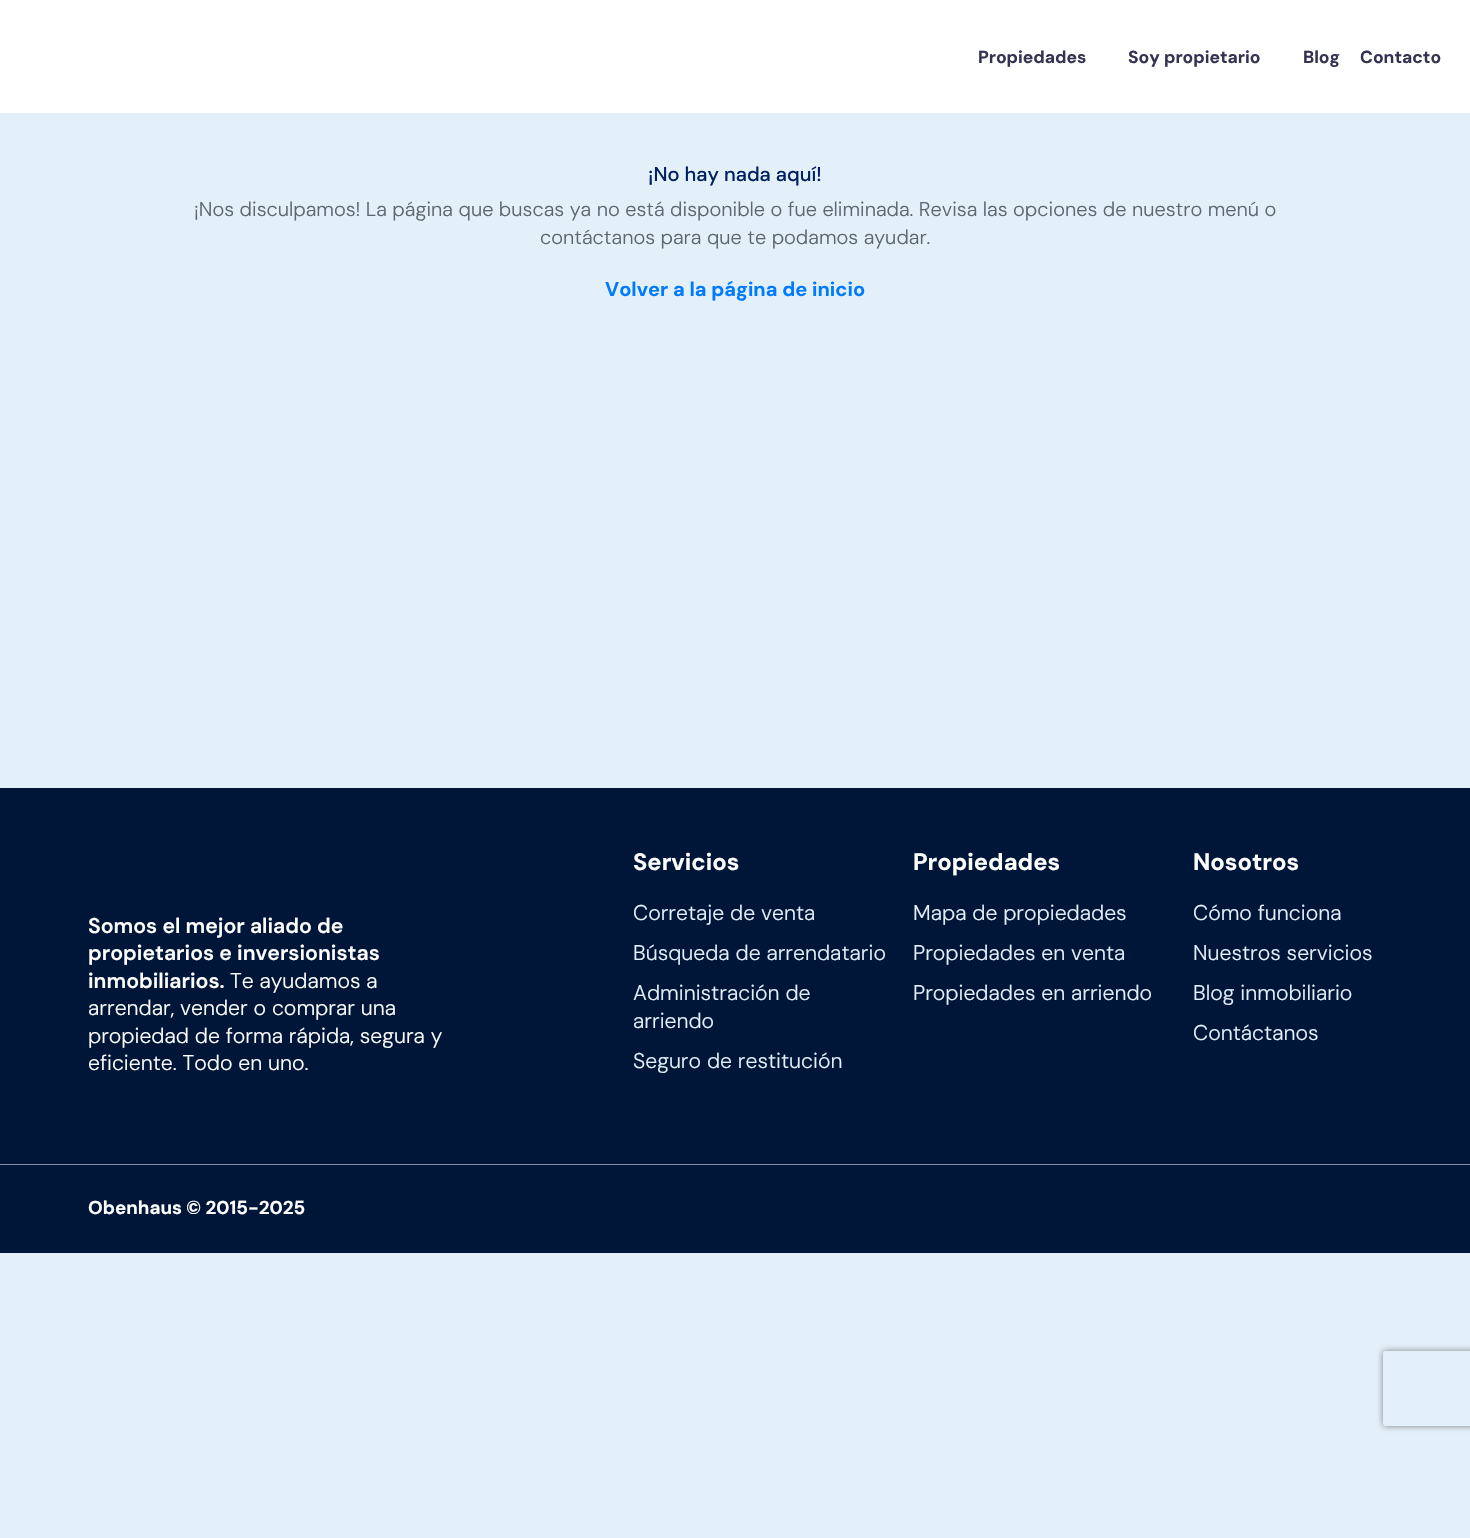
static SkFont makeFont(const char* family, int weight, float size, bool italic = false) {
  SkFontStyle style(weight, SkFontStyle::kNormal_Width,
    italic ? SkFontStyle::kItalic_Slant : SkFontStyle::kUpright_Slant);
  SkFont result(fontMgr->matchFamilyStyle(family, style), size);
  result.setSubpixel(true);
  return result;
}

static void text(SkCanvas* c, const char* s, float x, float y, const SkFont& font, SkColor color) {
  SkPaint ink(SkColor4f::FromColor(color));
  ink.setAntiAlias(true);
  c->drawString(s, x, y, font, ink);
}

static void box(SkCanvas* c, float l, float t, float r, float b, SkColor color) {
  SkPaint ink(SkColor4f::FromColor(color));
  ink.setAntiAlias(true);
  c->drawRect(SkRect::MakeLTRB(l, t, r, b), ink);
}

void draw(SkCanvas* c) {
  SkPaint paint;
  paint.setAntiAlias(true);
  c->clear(0xffe3eff9);
  box(c, 0, 0, 1470, 113, 0xffffffff);
  SkFont face1 = makeFont("DM Sans", 700, 17.5f);
  text(c, "Propiedades", 978, 63, face1, 0xff343352);
  text(c, "Soy propietario", 1128, 63, face1, 0xff343352);
  text(c, "Blog", 1303, 63, face1, 0xff343352);
  text(c, "Contacto", 1360, 63, face1, 0xff343352);
  SkFont face2 = makeFont("DM Sans", 500, 20);
  text(c, "¡No hay nada aquí!", 648, 181, face2, 0xff002060);
  SkFont face3 = makeFont("DM Sans", 300, 20);
  text(c, "¡Nos disculpamos! La página que buscas ya no está disponible o fue eliminada. Revisa las opciones de nuestro menú o", 194, 216, face3, 0xff5e666f);
  text(c, "contáctanos para que te podamos ayudar.", 540, 244, face3, 0xff5e666f);
  SkFont face4 = makeFont("DM Sans", 700, 20);
  text(c, "Volver a la página de inicio", 605, 296, face4, 0xff007bff);
  box(c, 0, 788, 1470, 1164, 0xff001638);
  SkFont face5 = makeFont("DM Sans", 600, 21.25f);
  text(c, "Somos el mejor aliado de", 88, 933, face5, 0xffffffff);
  text(c, "propietarios e inversionistas", 88, 960, face5, 0xffffffff);
  text(c, "inmobiliarios.", 88, 988, face5, 0xffffffff);
  SkFont face6 = makeFont("DM Sans", 300, 21.25f);
  text(c, "Te ayudamos a", 230, 988, face6, 0xffffffff);
  text(c, "arrendar, vender o comprar una", 88, 1015, face6, 0xffffffff);
  text(c, "propiedad de forma rápida, segura y", 88, 1043, face6, 0xffffffff);
  text(c, "eficiente. Todo en uno.", 88, 1070, face6, 0xffffffff);
  SkFont face7 = makeFont("DM Sans", 700, 23.75f);
  text(c, "Servicios", 633, 870, face7, 0xffffffff);
  text(c, "Corretaje de venta", 633, 920, face6, 0xffe3eff9);
  text(c, "Búsqueda de arrendatario", 633, 960, face6, 0xffe3eff9);
  text(c, "Administración de", 633, 1000, face6, 0xffe3eff9);
  text(c, "arriendo", 633, 1028, face6, 0xffe3eff9);
  text(c, "Seguro de restitución", 633, 1068, face6, 0xffe3eff9);
  text(c, "Propiedades", 913, 870, face7, 0xffffffff);
  text(c, "Mapa de propiedades", 913, 920, face6, 0xffe3eff9);
  text(c, "Propiedades en venta", 913, 960, face6, 0xffe3eff9);
  text(c, "Propiedades en arriendo", 913, 1000, face6, 0xffe3eff9);
  text(c, "Nosotros", 1193, 870, face7, 0xffffffff);
  text(c, "Cómo funciona", 1193, 920, face6, 0xffe3eff9);
  text(c, "Nuestros servicios", 1193, 960, face6, 0xffe3eff9);
  text(c, "Blog inmobiliario", 1193, 1000, face6, 0xffe3eff9);
  text(c, "Contáctanos", 1193, 1040, face6, 0xffe3eff9);
  box(c, 0, 1165, 1470, 1253, 0xff001638);
  box(c, 0, 1164, 1470, 1165, 0xff858f9f);
  SkFont face8 = makeFont("DM Sans", 700, 18.75f);
  text(c, "Obenhaus © 2015-2025", 88, 1214, face8, 0xffffffff);
  c->save();
  c->clipPath(SkPathBuilder(SkPathFillType::kEvenOdd).moveTo(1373, 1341).lineTo(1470, 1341).lineTo(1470, 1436).lineTo(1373, 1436).close().moveTo(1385.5f, 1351).lineTo(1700.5f, 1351).cubicTo(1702, 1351, 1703, 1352, 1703, 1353.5f).lineTo(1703, 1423.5f).cubicTo(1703, 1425, 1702, 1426, 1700.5f, 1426).lineTo(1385.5f, 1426).cubicTo(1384, 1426, 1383, 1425, 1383, 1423.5f).lineTo(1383, 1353.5f).cubicTo(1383, 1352, 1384, 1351, 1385.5f, 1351).close().detach(), true);
  paint.setColor(0xff808080);
  paint.setMaskFilter(SkMaskFilter::MakeBlur(kNormal_SkBlurStyle, 3));
  c->drawRoundRect(SkRect::MakeLTRB(1383, 1351, 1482, 1426), 2.5f, 2.5f, paint);
  paint.setMaskFilter(nullptr);
  c->restore();
}
